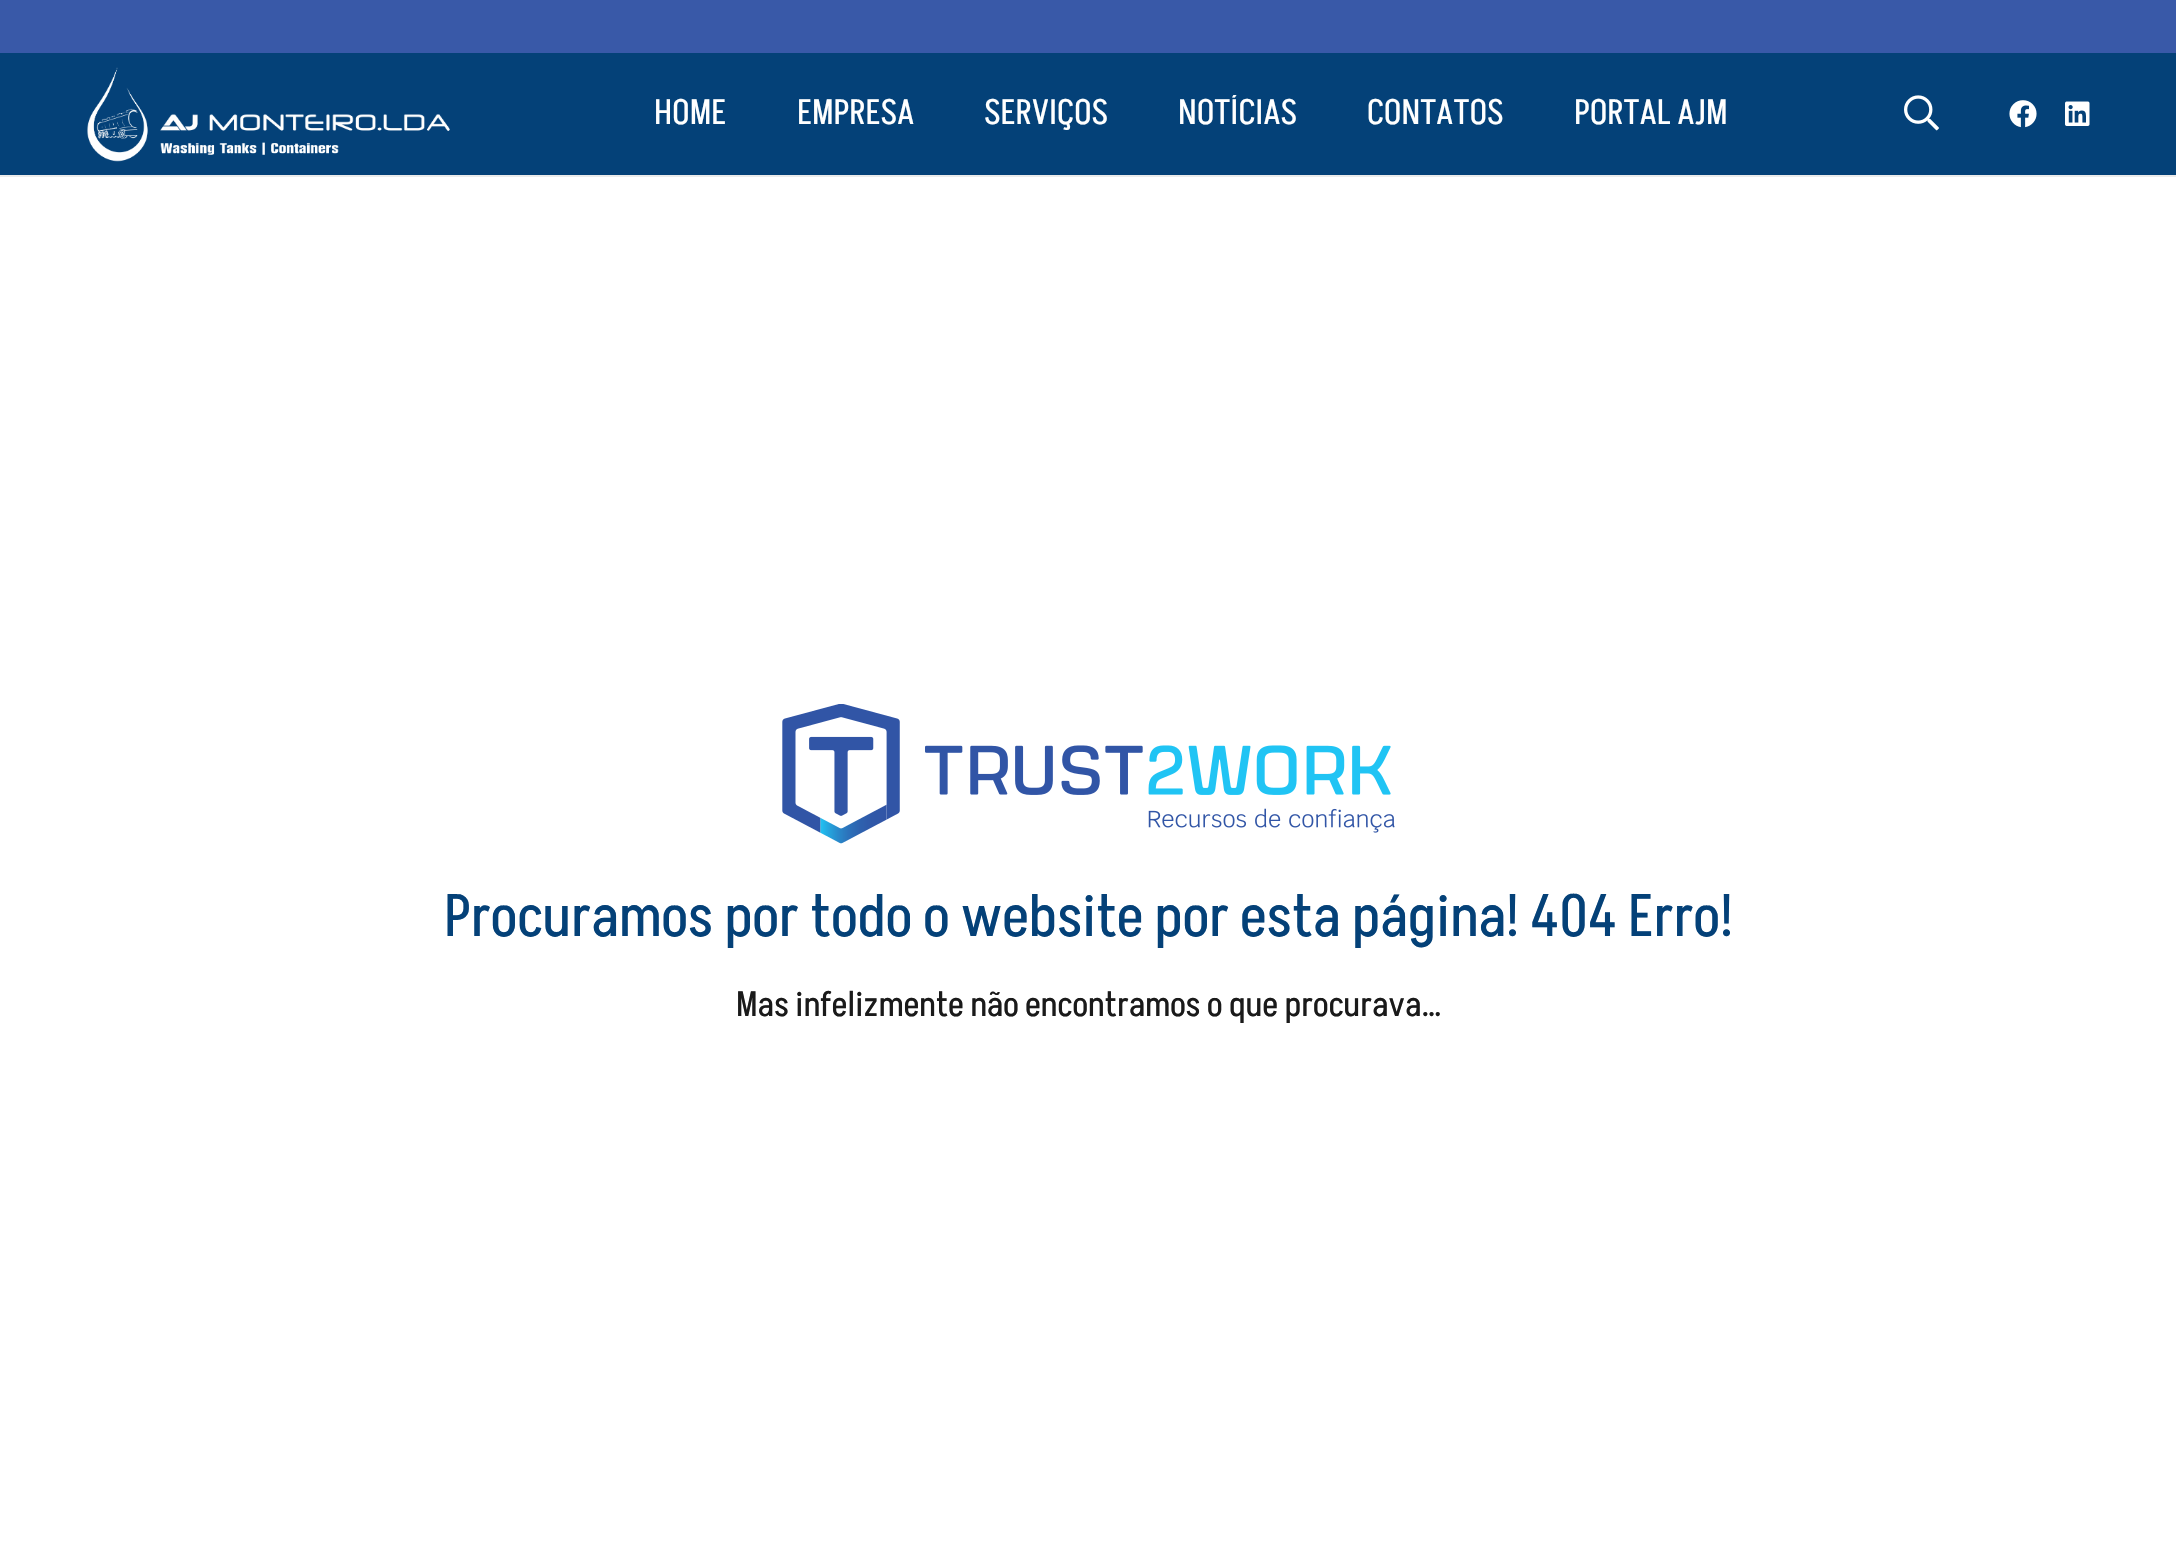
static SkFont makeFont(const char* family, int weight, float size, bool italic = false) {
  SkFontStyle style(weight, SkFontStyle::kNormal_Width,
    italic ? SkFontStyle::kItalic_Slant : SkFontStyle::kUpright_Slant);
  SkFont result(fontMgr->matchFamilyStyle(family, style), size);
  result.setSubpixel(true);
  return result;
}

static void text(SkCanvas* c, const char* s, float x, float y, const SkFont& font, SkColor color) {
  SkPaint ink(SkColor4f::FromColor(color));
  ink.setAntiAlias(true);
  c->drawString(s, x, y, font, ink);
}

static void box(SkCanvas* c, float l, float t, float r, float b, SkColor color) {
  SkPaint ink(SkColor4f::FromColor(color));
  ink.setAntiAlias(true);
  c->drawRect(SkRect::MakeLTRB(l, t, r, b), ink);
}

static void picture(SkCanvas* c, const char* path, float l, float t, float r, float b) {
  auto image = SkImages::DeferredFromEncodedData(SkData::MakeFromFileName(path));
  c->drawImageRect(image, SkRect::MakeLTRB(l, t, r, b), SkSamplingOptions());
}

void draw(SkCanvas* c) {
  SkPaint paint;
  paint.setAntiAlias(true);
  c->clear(0xffffffff);
  box(c, 0, 0, 2176, 53, 0xff3959a8);
  box(c, 0, 175, 2176, 177, 0xffebebeb);
  box(c, 0, 53, 2176, 175, 0xff044178);
  picture(c, "img_01.png", 87, 67, 450, 162);
  SkFont face1 = makeFont("Akshar", 400, 35);
  text(c, "HOME", 654, 124, face1, 0xffffffff);
  text(c, "EMPRESA", 797, 124, face1, 0xffffffff);
  text(c, "SERVIÇOS", 984, 124, face1, 0xffffffff);
  c->save();
  c->clipRect(SkRect::MakeLTRB(1143, 95, 1332, 133));
  text(c, "NOTÍCIAS", 1178, 124, face1, 0xffffffff);
  c->restore();
  text(c, "CONTATOS", 1367, 124, face1, 0xffffffff);
  text(c, "PORTAL AJM", 1574, 124, face1, 0xffffffff);
  picture(c, "img_02.png", 1904, 95, 1939, 131);
  picture(c, "img_03.png", 2009, 100, 2037, 128);
  picture(c, "img_04.png", 2065, 101, 2090, 126);
  picture(c, "img_05.png", 782, 704, 1395, 844);
  SkFont face2 = makeFont("Akshar", 400, 59.5f);
  text(c, "Procuramos por todo o website por esta página! 404 Erro!", 444, 936, face2, 0xff044178);
  text(c, "Mas infelizmente não encontramos o que procurava…", 736, 1016, face1, 0xff1a1a1a);
}
